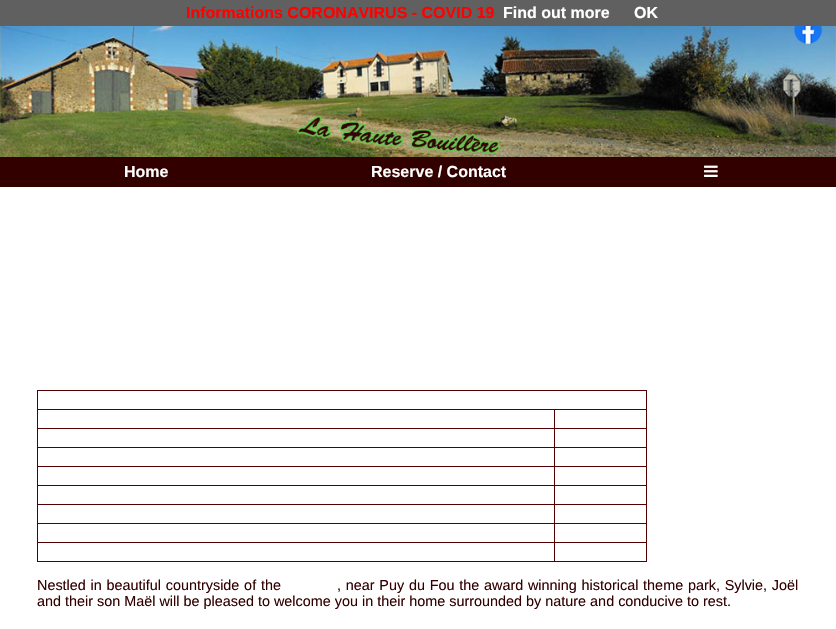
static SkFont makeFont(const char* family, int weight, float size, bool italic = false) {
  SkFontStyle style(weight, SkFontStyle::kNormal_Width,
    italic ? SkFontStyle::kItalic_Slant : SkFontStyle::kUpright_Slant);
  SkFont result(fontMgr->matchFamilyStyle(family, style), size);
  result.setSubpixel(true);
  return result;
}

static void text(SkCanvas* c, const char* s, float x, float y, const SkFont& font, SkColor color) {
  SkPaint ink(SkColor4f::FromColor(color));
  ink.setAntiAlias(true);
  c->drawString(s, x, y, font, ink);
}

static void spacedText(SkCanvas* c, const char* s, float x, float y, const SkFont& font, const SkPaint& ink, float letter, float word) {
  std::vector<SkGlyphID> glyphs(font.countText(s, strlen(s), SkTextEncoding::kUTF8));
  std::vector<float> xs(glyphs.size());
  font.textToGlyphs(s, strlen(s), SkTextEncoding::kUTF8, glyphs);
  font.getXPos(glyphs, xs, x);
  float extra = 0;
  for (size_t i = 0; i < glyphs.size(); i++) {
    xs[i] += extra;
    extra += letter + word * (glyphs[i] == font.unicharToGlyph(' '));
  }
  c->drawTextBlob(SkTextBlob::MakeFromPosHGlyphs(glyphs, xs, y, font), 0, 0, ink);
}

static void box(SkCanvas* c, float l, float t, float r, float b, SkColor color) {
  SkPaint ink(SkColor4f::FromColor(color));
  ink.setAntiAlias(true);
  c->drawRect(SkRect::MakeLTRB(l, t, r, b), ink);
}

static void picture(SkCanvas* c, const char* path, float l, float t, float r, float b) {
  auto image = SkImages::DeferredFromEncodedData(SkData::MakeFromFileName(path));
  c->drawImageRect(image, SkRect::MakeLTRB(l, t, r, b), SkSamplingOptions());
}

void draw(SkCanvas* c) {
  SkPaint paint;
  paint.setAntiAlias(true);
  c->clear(0xffffffff);
  box(c, 0, 0, 836, 26, 0xff606060);
  SkFont face1 = makeFont("Liberation Sans", 700, 16);
  text(c, "Informations CORONAVIRUS - COVID 19", 186, 18, face1, 0xffff0000);
  text(c, "Find out more", 503, 18, face1, 0xffffffff);
  text(c, "OK", 634, 18, face1, 0xffffffff);
  picture(c, "img_01.png", 0, 26, 836, 157);
  box(c, 0, 157, 836, 187, 0xff330000);
  text(c, "Home", 124, 177, face1, 0xffffffff);
  text(c, "Reserve / Contact", 371, 177, face1, 0xffffffff);
  picture(c, "img_02.png", 704, 165, 718, 177);
  box(c, 37, 390, 647, 391, 0xff530000);
  box(c, 554, 409, 647, 410, 0xff530000);
  box(c, 554, 428, 647, 429, 0xff530000);
  box(c, 554, 447, 647, 448, 0xff530000);
  box(c, 554, 466, 647, 467, 0xff530000);
  box(c, 554, 485, 647, 486, 0xff530000);
  box(c, 554, 504, 647, 505, 0xff530000);
  box(c, 554, 523, 647, 524, 0xff530000);
  box(c, 554, 542, 647, 543, 0xff530000);
  box(c, 646, 542, 647, 562, 0xff530000);
  box(c, 646, 523, 647, 543, 0xff530000);
  box(c, 646, 504, 647, 524, 0xff530000);
  box(c, 646, 485, 647, 505, 0xff530000);
  box(c, 646, 466, 647, 486, 0xff530000);
  box(c, 646, 447, 647, 467, 0xff530000);
  box(c, 646, 428, 647, 448, 0xff530000);
  box(c, 646, 409, 647, 429, 0xff530000);
  box(c, 646, 390, 647, 410, 0xff530000);
  box(c, 554, 561, 647, 562, 0xff530000);
  box(c, 554, 542, 555, 562, 0xff530000);
  box(c, 37, 542, 555, 543, 0xff530000);
  box(c, 554, 523, 555, 543, 0xff530000);
  box(c, 37, 523, 555, 524, 0xff530000);
  box(c, 554, 504, 555, 524, 0xff530000);
  box(c, 37, 504, 555, 505, 0xff530000);
  box(c, 554, 485, 555, 505, 0xff530000);
  box(c, 37, 485, 555, 486, 0xff530000);
  box(c, 554, 466, 555, 486, 0xff530000);
  box(c, 37, 466, 555, 467, 0xff530000);
  box(c, 554, 447, 555, 467, 0xff530000);
  box(c, 37, 447, 555, 448, 0xff530000);
  box(c, 554, 428, 555, 448, 0xff530000);
  box(c, 37, 428, 555, 429, 0xff530000);
  box(c, 554, 409, 555, 429, 0xff530000);
  box(c, 37, 409, 555, 410, 0xff530000);
  box(c, 37, 561, 555, 562, 0xff530000);
  box(c, 37, 542, 38, 562, 0xff530000);
  box(c, 37, 523, 38, 543, 0xff530000);
  box(c, 37, 504, 38, 524, 0xff530000);
  box(c, 37, 485, 38, 505, 0xff530000);
  box(c, 37, 466, 38, 486, 0xff530000);
  box(c, 37, 447, 38, 467, 0xff530000);
  box(c, 37, 428, 38, 448, 0xff530000);
  box(c, 37, 409, 38, 429, 0xff530000);
  box(c, 37, 390, 38, 410, 0xff530000);
  SkFont face2 = makeFont("Liberation Sans", 400, 14.4f);
  paint.setColor(0xff330000);
  spacedText(c, "Nestled in beautiful countryside of the", 37, 590, face2, paint, 0, 0.75f);
  spacedText(c, ", near Puy du Fou the award winning historical theme park, Sylvie, Joël", 337, 590, face2, paint, 0, 0.75f);
  text(c, "and their son Maël will be pleased to welcome you in their home surrounded by nature and conducive to rest.", 37, 606, face2, 0xff330000);
}
